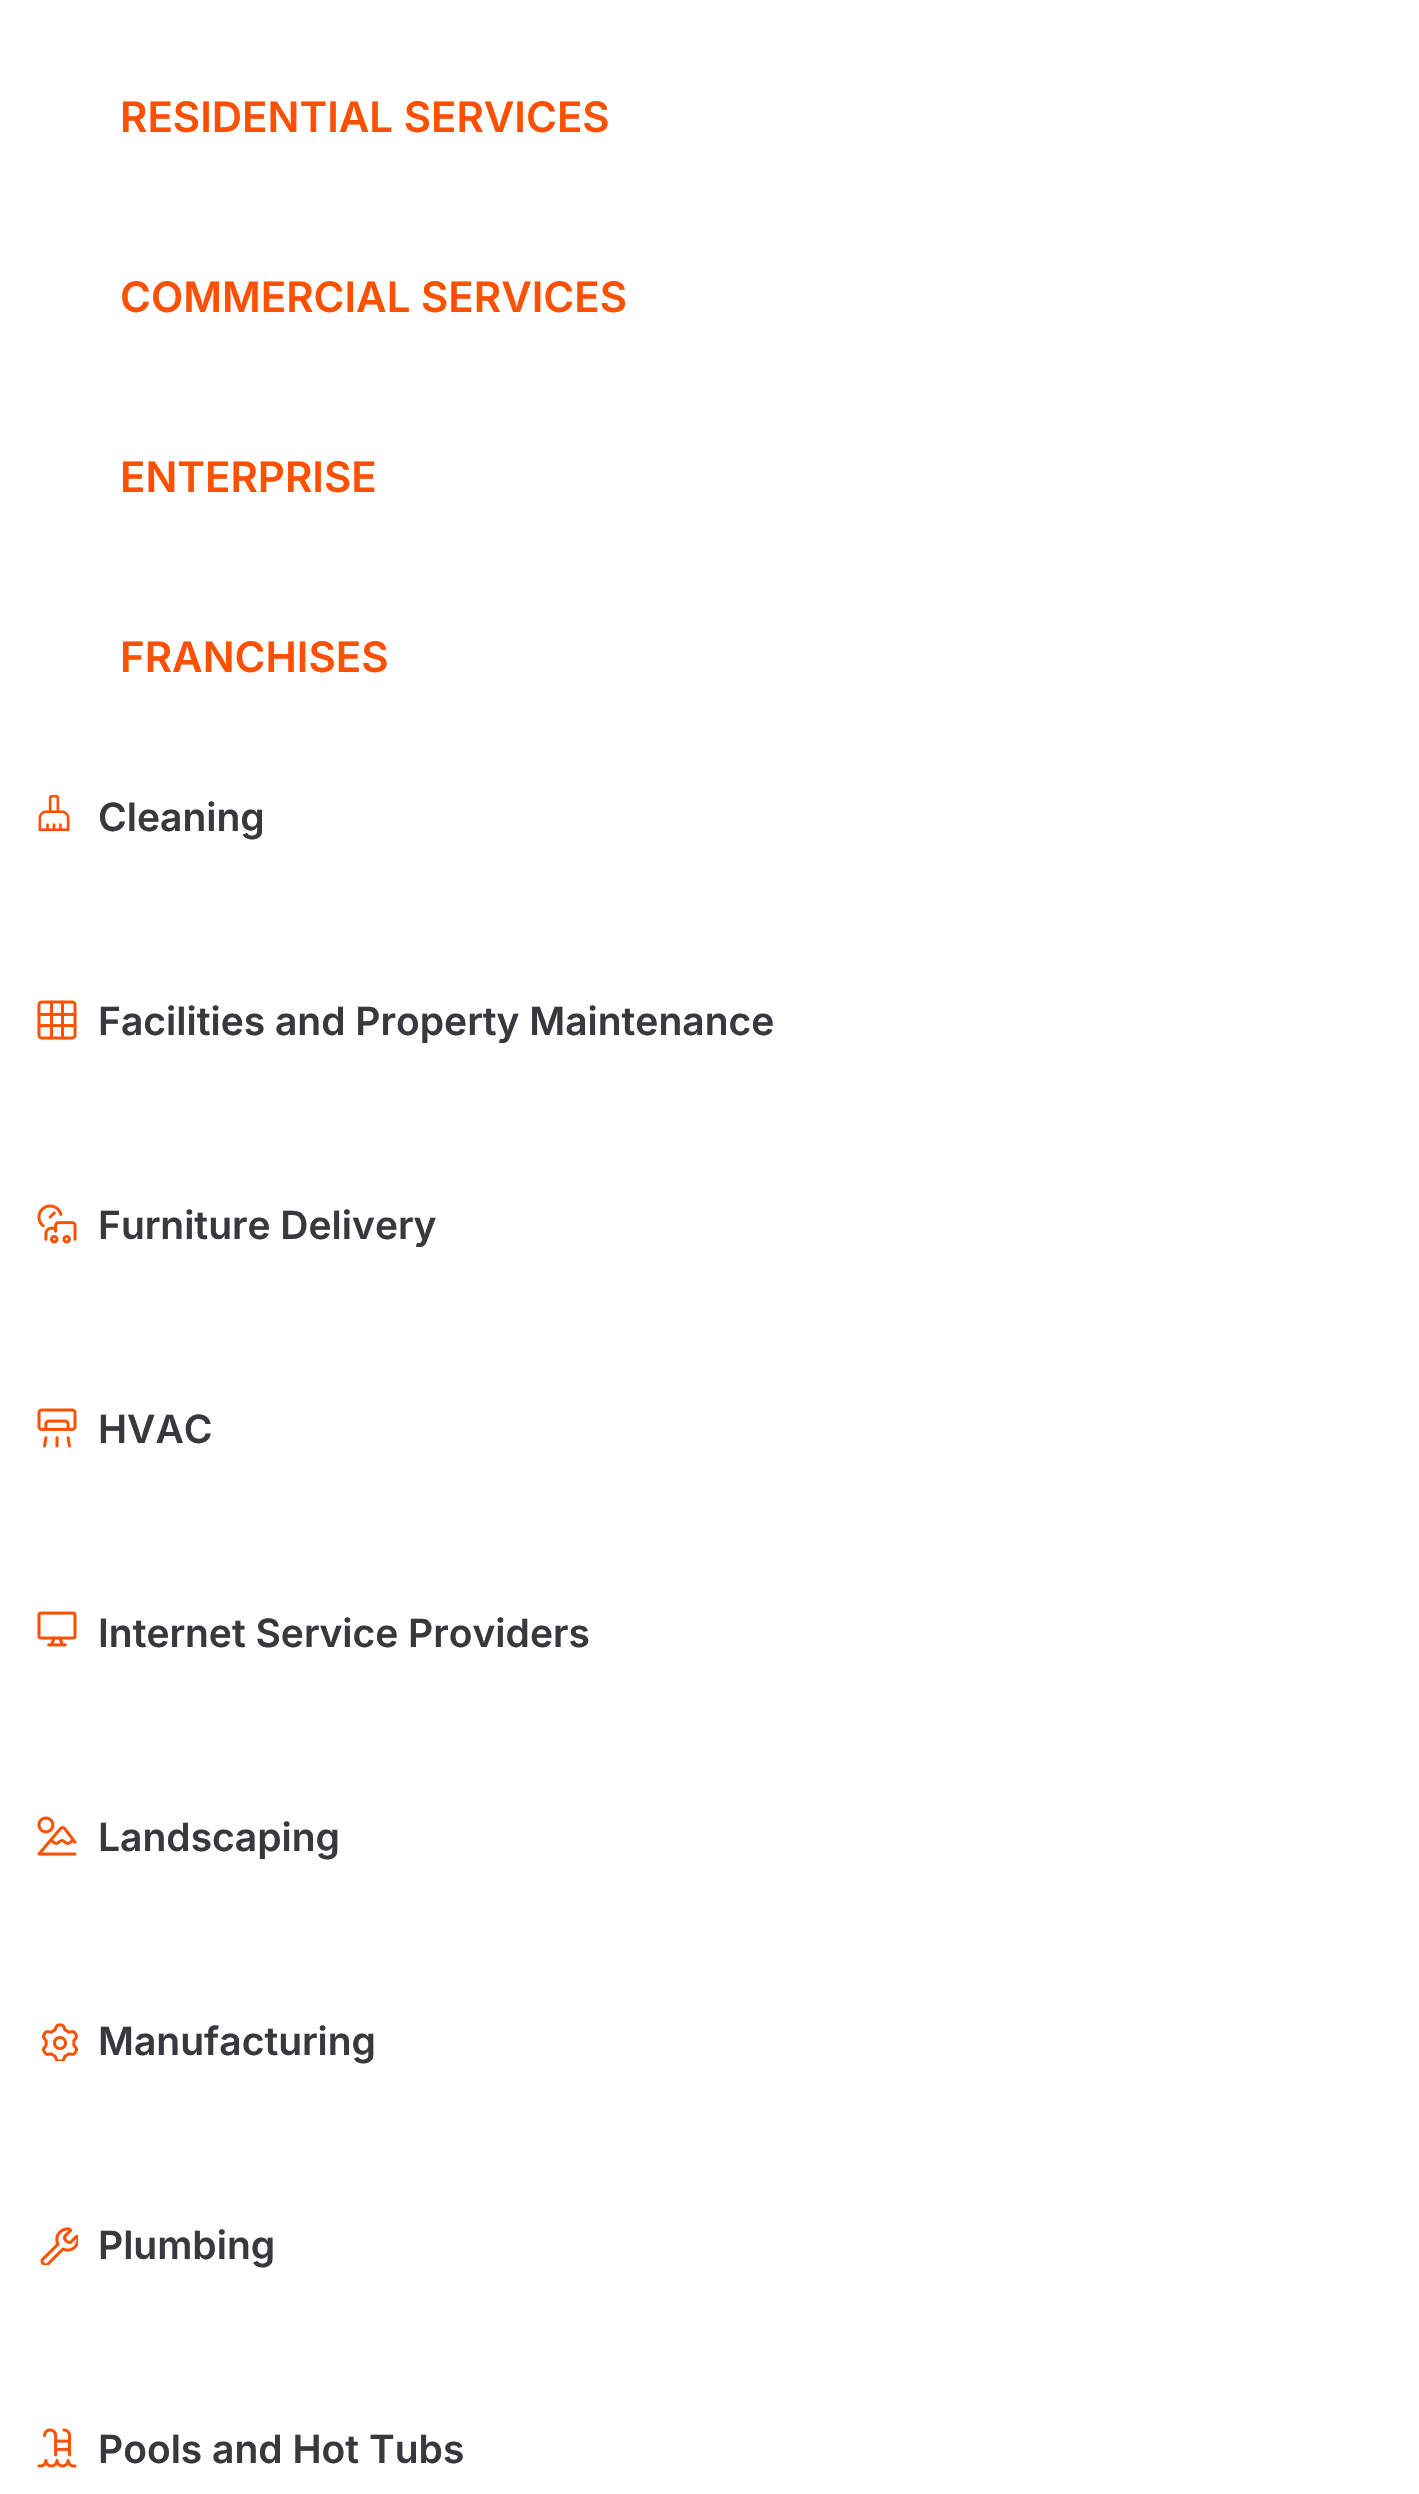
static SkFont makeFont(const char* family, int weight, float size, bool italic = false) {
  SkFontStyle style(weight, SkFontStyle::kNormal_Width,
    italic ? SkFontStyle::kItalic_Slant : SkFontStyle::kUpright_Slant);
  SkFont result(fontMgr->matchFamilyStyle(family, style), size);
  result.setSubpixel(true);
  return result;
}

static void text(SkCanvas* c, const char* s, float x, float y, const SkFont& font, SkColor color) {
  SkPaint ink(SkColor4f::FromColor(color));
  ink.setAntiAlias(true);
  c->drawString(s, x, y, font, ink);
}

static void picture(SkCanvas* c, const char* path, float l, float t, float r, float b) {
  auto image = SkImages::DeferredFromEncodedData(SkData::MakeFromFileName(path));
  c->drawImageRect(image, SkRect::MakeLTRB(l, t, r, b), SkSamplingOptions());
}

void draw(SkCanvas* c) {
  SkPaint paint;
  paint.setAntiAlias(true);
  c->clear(0xffffffff);
  SkFont face1 = makeFont("Inter", 600, 42);
  text(c, "RESIDENTIAL SERVICES", 120, 132, face1, 0xfffd5000);
  text(c, "COMMERCIAL SERVICES", 120, 312, face1, 0xfffd5000);
  text(c, "ENTERPRISE", 120, 492, face1, 0xfffd5000);
  text(c, "FRANCHISES", 120, 672, face1, 0xfffd5000);
  picture(c, "img_01.png", 38, 795, 70, 831);
  SkFont face2 = makeFont("Inter", 600, 39);
  text(c, "Cleaning", 98, 831, face2, 0xff39383c);
  picture(c, "img_02.png", 37, 1000, 77, 1040);
  text(c, "Facilities and Property Maintenance", 98, 1035, face2, 0xff39383c);
  picture(c, "img_03.png", 37, 1204, 77, 1244);
  text(c, "Furniture Delivery", 98, 1239, face2, 0xff39383c);
  picture(c, "img_04.png", 37, 1408, 77, 1448);
  text(c, "HVAC", 98, 1443, face2, 0xff39383c);
  picture(c, "img_05.png", 37, 1611, 77, 1647);
  text(c, "Internet Service Providers", 98, 1647, face2, 0xff39383c);
  picture(c, "img_06.png", 37, 1816, 77, 1856);
  text(c, "Landscaping", 98, 1851, face2, 0xff39383c);
  picture(c, "img_07.png", 42, 2023, 78, 2061);
  text(c, "Manufacturing", 98, 2055, face2, 0xff39383c);
  picture(c, "img_08.png", 40, 2227, 78, 2265);
  text(c, "Plumbing", 98, 2259, face2, 0xff39383c);
  picture(c, "img_09.png", 37, 2428, 77, 2468);
  text(c, "Pools and Hot Tubs", 98, 2463, face2, 0xff39383c);
}
